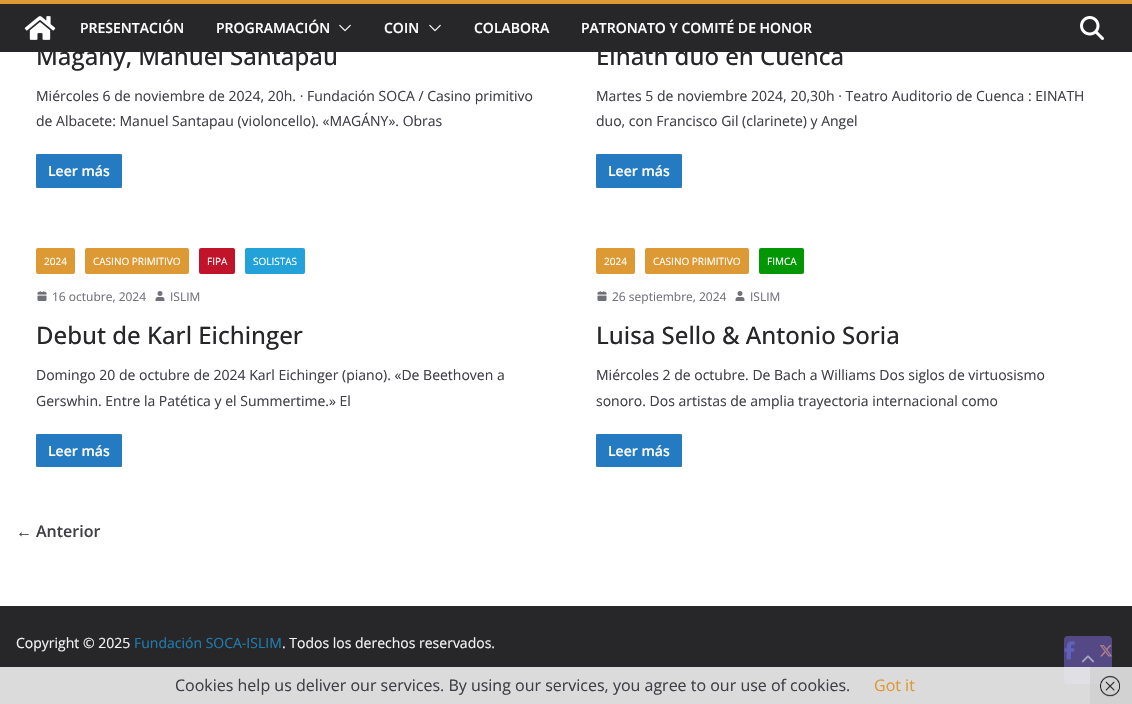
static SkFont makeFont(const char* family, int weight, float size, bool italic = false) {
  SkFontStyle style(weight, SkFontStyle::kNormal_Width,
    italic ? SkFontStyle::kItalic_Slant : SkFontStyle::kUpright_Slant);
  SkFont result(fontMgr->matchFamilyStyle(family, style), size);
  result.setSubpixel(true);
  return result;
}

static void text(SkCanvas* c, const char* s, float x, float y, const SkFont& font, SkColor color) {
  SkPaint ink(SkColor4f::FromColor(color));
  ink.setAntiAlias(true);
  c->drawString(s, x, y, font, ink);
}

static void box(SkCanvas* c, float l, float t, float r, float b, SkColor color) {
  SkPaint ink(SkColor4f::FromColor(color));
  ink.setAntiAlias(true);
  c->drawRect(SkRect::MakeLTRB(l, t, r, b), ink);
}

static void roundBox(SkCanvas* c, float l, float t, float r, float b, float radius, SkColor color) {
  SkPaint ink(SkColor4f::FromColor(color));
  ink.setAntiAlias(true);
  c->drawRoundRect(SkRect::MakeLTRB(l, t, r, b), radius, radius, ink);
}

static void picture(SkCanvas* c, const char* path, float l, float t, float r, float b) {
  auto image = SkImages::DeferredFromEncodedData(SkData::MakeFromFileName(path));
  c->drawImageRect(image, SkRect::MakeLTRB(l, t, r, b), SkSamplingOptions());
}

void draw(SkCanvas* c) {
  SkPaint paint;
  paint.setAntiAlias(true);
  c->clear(0xffffffff);
  box(c, 0, 4, 1132, 52, 0xff27272a);
  box(c, 0, 0, 1132, 4, 0xffdd9933);
  picture(c, "img_01.png", 24, 16, 56, 40);
  SkFont face1 = makeFont("Open Sans", 600, 14);
  text(c, "PRESENTACIÓN", 80, 33, face1, 0xffffffff);
  text(c, "PROGRAMACIÓN", 216, 33, face1, 0xffffffff);
  picture(c, "img_02.png", 339, 24, 351, 32);
  text(c, "COIN", 384, 33, face1, 0xffffffff);
  picture(c, "img_02.png", 429, 24, 441, 32);
  text(c, "COLABORA", 474, 33, face1, 0xffffffff);
  text(c, "PATRONATO Y COMITÉ DE HONOR", 581, 33, face1, 0xffffffff);
  picture(c, "img_03.png", 1080, 16, 1104, 40);
  SkFont face2 = makeFont("Open Sans", 500, 24);
  text(c, "Magány, Manuel Santapau", 36, 65, face2, 0xff27272a);
  SkFont face3 = makeFont("Open Sans", 400, 14);
  text(c, "Miércoles 6 de noviembre de 2024, 20h. · Fundación SOCA / Casino primitivo", 36, 101, face3, 0xff3f3f46);
  text(c, "de Albacete: Manuel Santapau (violoncello). «MAGÁNY». Obras", 36, 126, face3, 0xff3f3f46);
  box(c, 36, 154, 122, 188, 0xffdd9933);
  roundBox(c, 36, 154, 122, 188, 2, 0xff257bc1);
  text(c, "Leer más", 48, 176, face1, 0xffffffff);
  text(c, "Einath duo en Cuenca", 596, 65, face2, 0xff27272a);
  text(c, "Martes 5 de noviembre 2024, 20,30h · Teatro Auditorio de Cuenca : EINATH", 596, 101, face3, 0xff3f3f46);
  text(c, "duo, con Francisco Gil (clarinete) y Angel", 596, 126, face3, 0xff3f3f46);
  box(c, 596, 154, 682, 188, 0xffdd9933);
  roundBox(c, 596, 154, 682, 188, 2, 0xff257bc1);
  text(c, "Leer más", 608, 176, face1, 0xffffffff);
  roundBox(c, 36, 248, 75, 274, 2, 0xffdd9933);
  SkFont face4 = makeFont("Open Sans", 400, 10);
  text(c, "2024", 44, 265, face4, 0xffffffff);
  roundBox(c, 85, 248, 189, 274, 2, 0xffdd9933);
  text(c, "CASINO PRIMITIVO", 93, 265, face4, 0xffffffff);
  roundBox(c, 199, 248, 235, 274, 2, 0xffc1132a);
  text(c, "FIPA", 207, 265, face4, 0xffffffff);
  roundBox(c, 245, 248, 305, 274, 2, 0xff22a2d8);
  text(c, "SOLISTAS", 253, 265, face4, 0xffffffff);
  picture(c, "img_04.png", 37, 291, 47, 301);
  SkFont face5 = makeFont("Open Sans", 400, 12);
  text(c, "16 octubre, 2024", 52, 301, face5, 0xff71717a);
  picture(c, "img_05.png", 155, 291, 165, 301);
  text(c, "ISLIM", 170, 301, face5, 0xff71717a);
  text(c, "Debut de Karl Eichinger", 36, 344, face2, 0xff27272a);
  text(c, "Domingo 20 de octubre de 2024 Karl Eichinger (piano). «De Beethoven a", 36, 380, face3, 0xff3f3f46);
  text(c, "Gerswhin. Entre la Patética y el Summertime.» El", 36, 406, face3, 0xff3f3f46);
  box(c, 36, 434, 122, 467, 0xffdd9933);
  roundBox(c, 36, 434, 122, 467, 2, 0xff257bc1);
  text(c, "Leer más", 48, 456, face1, 0xffffffff);
  roundBox(c, 596, 248, 635, 274, 2, 0xffdd9933);
  text(c, "2024", 604, 265, face4, 0xffffffff);
  roundBox(c, 645, 248, 749, 274, 2, 0xffdd9933);
  text(c, "CASINO PRIMITIVO", 653, 265, face4, 0xffffffff);
  roundBox(c, 759, 248, 804, 274, 2, 0xff039605);
  text(c, "FIMCA", 767, 265, face4, 0xffffffff);
  picture(c, "img_04.png", 597, 291, 607, 301);
  text(c, "26 septiembre, 2024", 612, 301, face5, 0xff71717a);
  picture(c, "img_05.png", 735, 291, 745, 301);
  text(c, "ISLIM", 750, 301, face5, 0xff71717a);
  text(c, "Luisa Sello & Antonio Soria", 596, 344, face2, 0xff27272a);
  text(c, "Miércoles 2 de octubre. De Bach a Williams Dos siglos de virtuosismo", 596, 380, face3, 0xff3f3f46);
  text(c, "sonoro. Dos artistas de amplia trayectoria internacional como", 596, 406, face3, 0xff3f3f46);
  box(c, 596, 434, 682, 467, 0xffdd9933);
  roundBox(c, 596, 434, 682, 467, 2, 0xff257bc1);
  text(c, "Leer más", 608, 456, face1, 0xffffffff);
  SkFont face6 = makeFont("Liberation Serif", 700, 16);
  text(c, "←", 16, 537, face6, 0xff3f3f46);
  SkFont face7 = makeFont("Open Sans", 600, 16);
  text(c, "Anterior", 36, 537, face7, 0xff3f3f46);
  box(c, 0, 606, 1132, 704, 0xff27272a);
  text(c, "Copyright © 2025", 16, 648, face3, 0xfff4f4f5);
  text(c, "Fundación SOCA-ISLIM", 134, 648, face3, 0xff207daf);
  text(c, ". Todos los derechos reservados.", 282, 648, face3, 0xfff4f4f5);
  picture(c, "img_06.png", 1064, 641, 1075, 660);
  picture(c, "img_07.png", 1099, 645, 1113, 657);
  roundBox(c, 1064, 636, 1112, 684, 4, 0x808269df);
  picture(c, "img_08.png", 1082, 655, 1094, 663);
  box(c, 0, 667, 1132, 704, 0xe6eeeeee);
  SkFont face8 = makeFont("Open Sans", 400, 16);
  text(c, "Cookies help us deliver our services. By using our services, you agree to our use of cookies.", 175, 691, face8, 0xff3f3f46);
  text(c, "Got it", 874, 691, face8, 0xffdd9933);
  box(c, 1090, 667, 1132, 704, 0x99cccccc);
  picture(c, "img_09.png", 1100, 675, 1120, 697);
}
